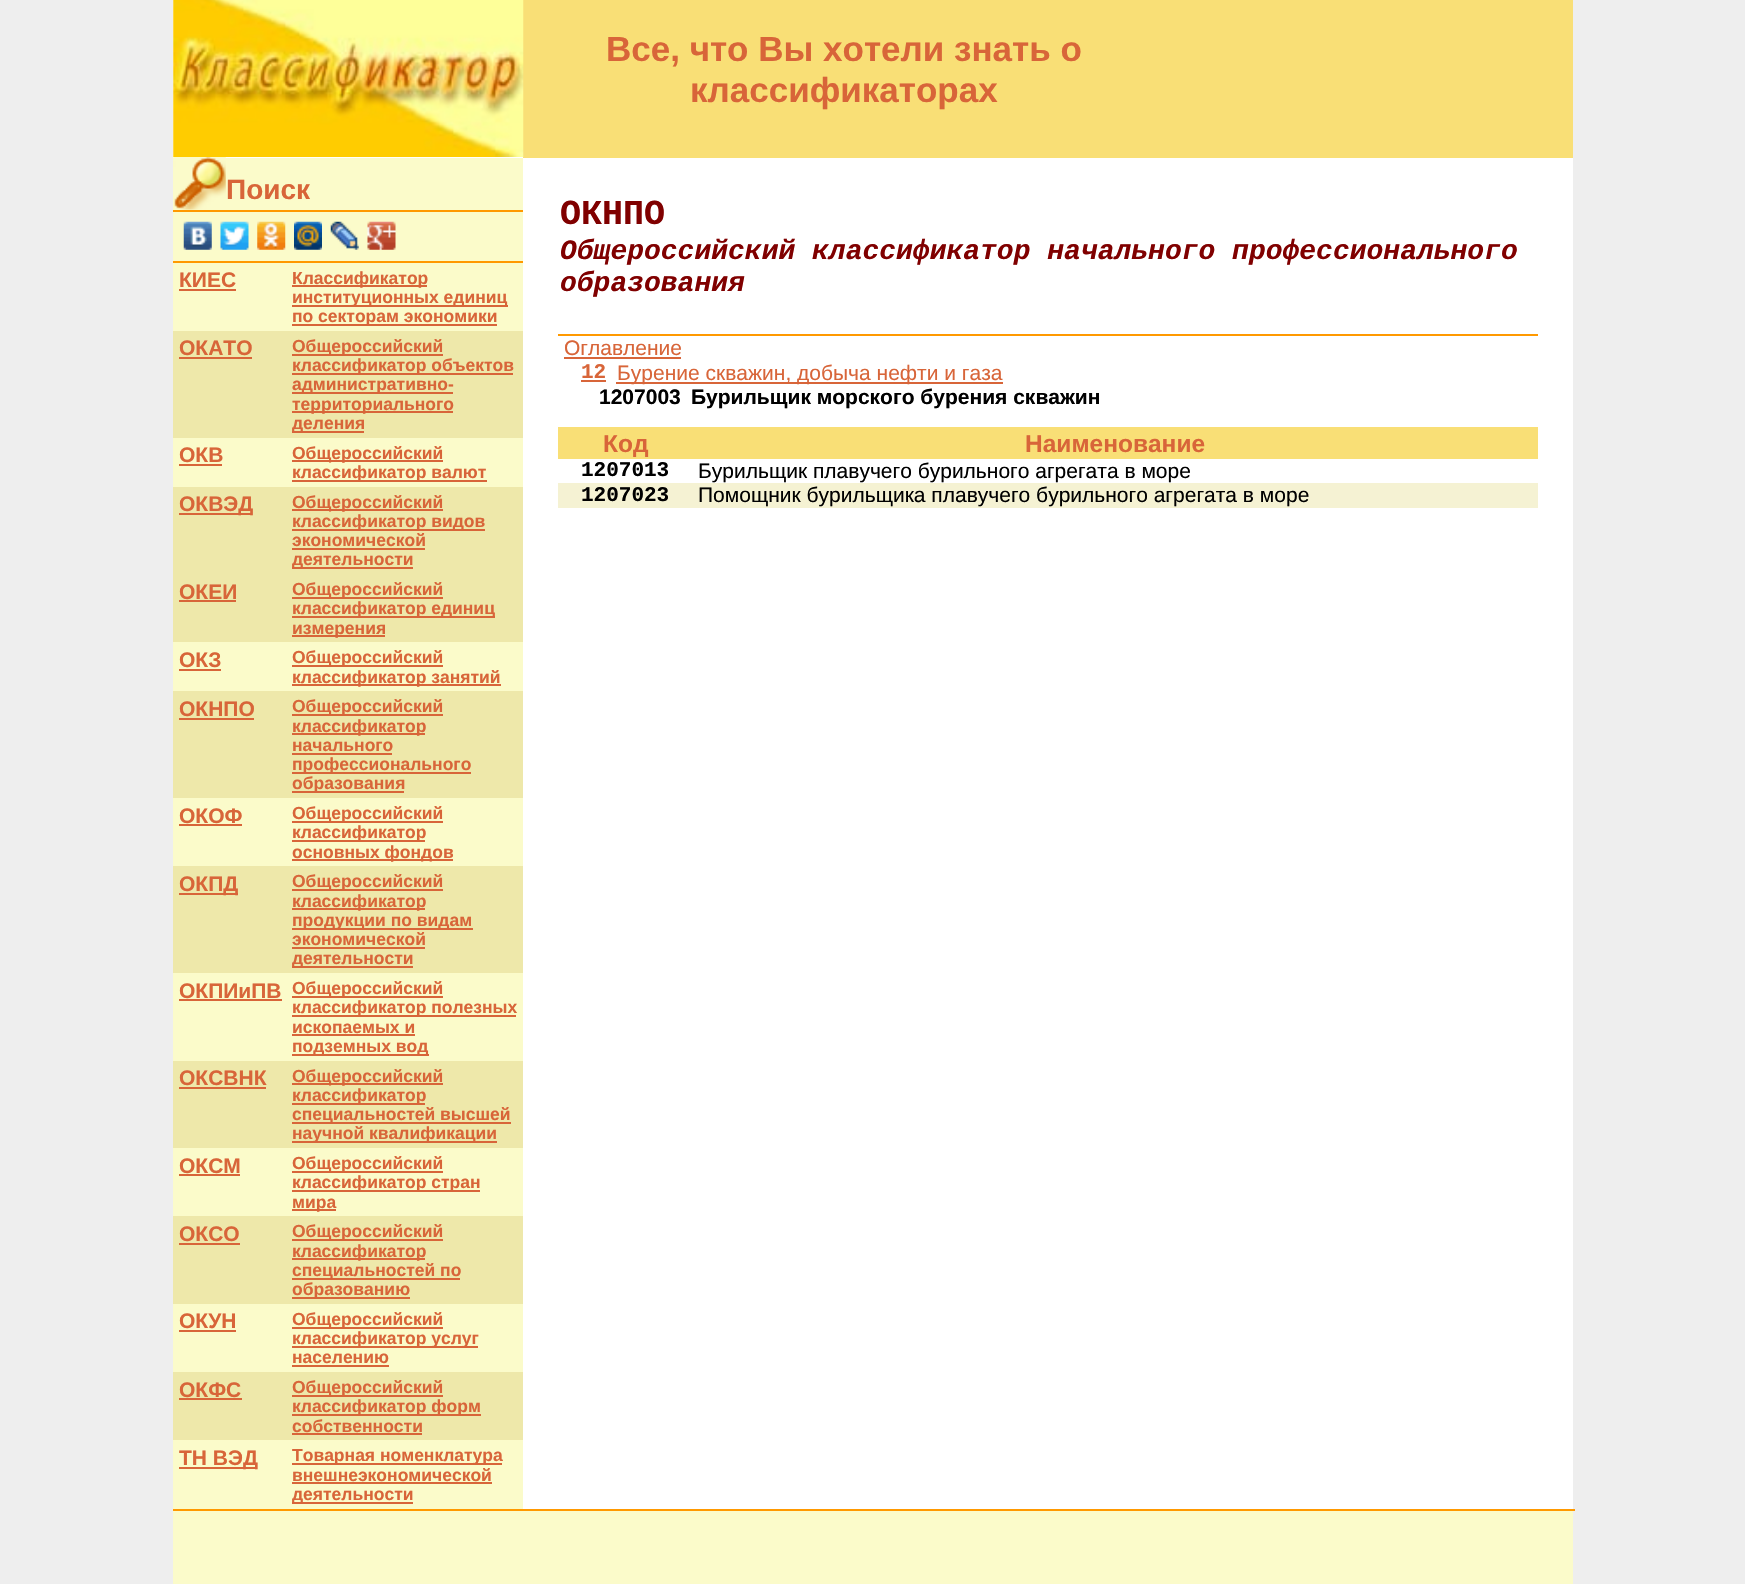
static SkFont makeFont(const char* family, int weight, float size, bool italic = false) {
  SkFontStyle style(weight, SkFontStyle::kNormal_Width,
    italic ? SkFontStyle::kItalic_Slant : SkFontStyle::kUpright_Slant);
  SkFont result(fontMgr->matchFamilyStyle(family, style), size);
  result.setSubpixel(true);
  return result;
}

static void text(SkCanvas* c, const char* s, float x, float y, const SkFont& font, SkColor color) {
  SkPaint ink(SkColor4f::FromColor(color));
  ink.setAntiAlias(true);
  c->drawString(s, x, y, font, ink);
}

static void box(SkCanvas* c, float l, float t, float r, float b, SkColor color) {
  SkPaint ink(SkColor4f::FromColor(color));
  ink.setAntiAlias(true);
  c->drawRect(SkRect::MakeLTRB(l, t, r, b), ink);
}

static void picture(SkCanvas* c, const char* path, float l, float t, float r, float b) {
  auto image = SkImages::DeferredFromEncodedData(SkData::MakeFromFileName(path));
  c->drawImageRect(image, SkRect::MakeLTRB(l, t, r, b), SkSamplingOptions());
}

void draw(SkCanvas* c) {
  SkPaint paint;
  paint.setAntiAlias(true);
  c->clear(0xffeeeeee);
  box(c, 173, 0, 1573, 1509, 0xffffffff);
  box(c, 523, 0, 1573, 158, 0xfff9df76);
  picture(c, "img_01.png", 173, 0, 524, 157);
  SkFont face1 = makeFont("Liberation Sans", 700, 35);
  text(c, "Все, что Вы хотели знать о", 606, 61, face1, 0xffd86539);
  text(c, "классификаторах", 690, 102, face1, 0xffd86539);
  box(c, 173, 158, 523, 1509, 0xfffbfbca);
  box(c, 173, 210, 523, 212, 0xffff9900);
  picture(c, "img_02.png", 173, 157, 226, 210);
  SkFont face2 = makeFont("Liberation Sans", 700, 28);
  text(c, "Поиск", 226, 199, face2, 0xffd86539);
  box(c, 173, 261, 523, 263, 0xffff9900);
  picture(c, "img_03.png", 183, 221, 212, 250);
  picture(c, "img_04.png", 220, 221, 249, 250);
  picture(c, "img_05.png", 257, 221, 286, 250);
  picture(c, "img_06.png", 294, 221, 322, 250);
  picture(c, "img_07.png", 330, 221, 359, 250);
  picture(c, "img_08.png", 367, 221, 396, 250);
  SkFont face3 = makeFont("Liberation Sans", 700, 21);
  text(c, "КИЕС", 179, 287, face3, 0xffd86539);
  box(c, 179, 289, 236, 291, 0xffd86539);
  box(c, 292, 285, 427, 287, 0xffd86539);
  SkFont face4 = makeFont("Liberation Sans", 700, 17.5f);
  text(c, "Классификатор", 292, 284, face4, 0xffd86539);
  box(c, 292, 305, 508, 307, 0xffd86539);
  text(c, "институционных единиц", 292, 303, face4, 0xffd86539);
  box(c, 292, 324, 497, 326, 0xffd86539);
  text(c, "по секторам экономики", 292, 322, face4, 0xffd86539);
  box(c, 173, 331, 523, 438, 0xffeee8aa);
  text(c, "ОКАТО", 179, 355, face3, 0xffd86539);
  box(c, 179, 357, 252, 359, 0xffd86539);
  box(c, 292, 354, 443, 356, 0xffd86539);
  text(c, "Общероссийский", 292, 352, face4, 0xffd86539);
  box(c, 292, 373, 513, 375, 0xffd86539);
  text(c, "классификатор объектов", 292, 371, face4, 0xffd86539);
  box(c, 292, 392, 453, 394, 0xffd86539);
  text(c, "административно-", 292, 390, face4, 0xffd86539);
  box(c, 292, 411, 453, 413, 0xffd86539);
  text(c, "территориального", 292, 410, face4, 0xffd86539);
  box(c, 292, 431, 364, 433, 0xffd86539);
  text(c, "деления", 292, 429, face4, 0xffd86539);
  text(c, "ОКВ", 179, 462, face3, 0xffd86539);
  box(c, 179, 464, 222, 466, 0xffd86539);
  box(c, 292, 460, 443, 462, 0xffd86539);
  text(c, "Общероссийский", 292, 459, face4, 0xffd86539);
  box(c, 292, 480, 487, 482, 0xffd86539);
  text(c, "классификатор валют", 292, 478, face4, 0xffd86539);
  box(c, 173, 487, 523, 574, 0xffeee8aa);
  box(c, 179, 513, 252, 515, 0xffd86539);
  text(c, "ОКВЭД", 179, 511, face3, 0xffd86539);
  box(c, 292, 509, 443, 511, 0xffd86539);
  text(c, "Общероссийский", 292, 508, face4, 0xffd86539);
  box(c, 292, 529, 485, 531, 0xffd86539);
  text(c, "классификатор видов", 292, 527, face4, 0xffd86539);
  text(c, "экономической", 292, 546, face4, 0xffd86539);
  box(c, 292, 548, 425, 550, 0xffd86539);
  box(c, 292, 567, 413, 569, 0xffd86539);
  text(c, "деятельности", 292, 565, face4, 0xffd86539);
  box(c, 173, 574, 523, 642, 0xffeee8aa);
  text(c, "ОКЕИ", 179, 599, face3, 0xffd86539);
  box(c, 179, 600, 236, 602, 0xffd86539);
  box(c, 292, 597, 443, 599, 0xffd86539);
  text(c, "Общероссийский", 292, 595, face4, 0xffd86539);
  box(c, 292, 616, 495, 618, 0xffd86539);
  text(c, "классификатор единиц", 292, 614, face4, 0xffd86539);
  box(c, 292, 635, 385, 637, 0xffd86539);
  text(c, "измерения", 292, 634, face4, 0xffd86539);
  text(c, "ОКЗ", 179, 667, face3, 0xffd86539);
  box(c, 179, 669, 221, 671, 0xffd86539);
  box(c, 292, 665, 443, 667, 0xffd86539);
  text(c, "Общероссийский", 292, 663, face4, 0xffd86539);
  box(c, 292, 684, 501, 686, 0xffd86539);
  text(c, "классификатор занятий", 292, 683, face4, 0xffd86539);
  box(c, 173, 691, 523, 798, 0xffeee8aa);
  text(c, "ОКНПО", 179, 716, face3, 0xffd86539);
  box(c, 179, 718, 254, 720, 0xffd86539);
  box(c, 292, 714, 443, 716, 0xffd86539);
  text(c, "Общероссийский", 292, 712, face4, 0xffd86539);
  box(c, 292, 733, 425, 735, 0xffd86539);
  text(c, "классификатор", 292, 732, face4, 0xffd86539);
  text(c, "начального", 292, 751, face4, 0xffd86539);
  box(c, 292, 753, 392, 755, 0xffd86539);
  box(c, 292, 772, 471, 774, 0xffd86539);
  text(c, "профессионального", 292, 770, face4, 0xffd86539);
  box(c, 292, 791, 404, 793, 0xffd86539);
  text(c, "образования", 292, 789, face4, 0xffd86539);
  text(c, "ОКОФ", 179, 823, face3, 0xffd86539);
  box(c, 179, 824, 242, 826, 0xffd86539);
  box(c, 292, 821, 443, 823, 0xffd86539);
  text(c, "Общероссийский", 292, 819, face4, 0xffd86539);
  box(c, 292, 840, 425, 842, 0xffd86539);
  text(c, "классификатор", 292, 838, face4, 0xffd86539);
  box(c, 292, 859, 453, 861, 0xffd86539);
  text(c, "основных фондов", 292, 858, face4, 0xffd86539);
  box(c, 173, 866, 523, 973, 0xffeee8aa);
  box(c, 179, 893, 238, 895, 0xffd86539);
  text(c, "ОКПД", 179, 891, face3, 0xffd86539);
  box(c, 292, 889, 443, 891, 0xffd86539);
  text(c, "Общероссийский", 292, 887, face4, 0xffd86539);
  box(c, 292, 908, 425, 910, 0xffd86539);
  text(c, "классификатор", 292, 907, face4, 0xffd86539);
  box(c, 292, 928, 473, 930, 0xffd86539);
  text(c, "продукции по видам", 292, 926, face4, 0xffd86539);
  text(c, "экономической", 292, 945, face4, 0xffd86539);
  box(c, 292, 947, 425, 949, 0xffd86539);
  box(c, 292, 966, 413, 968, 0xffd86539);
  text(c, "деятельности", 292, 964, face4, 0xffd86539);
  text(c, "ОКПИиПВ", 179, 998, face3, 0xffd86539);
  box(c, 179, 999, 282, 1001, 0xffd86539);
  box(c, 292, 996, 443, 998, 0xffd86539);
  text(c, "Общероссийский", 292, 994, face4, 0xffd86539);
  box(c, 292, 1015, 516, 1017, 0xffd86539);
  text(c, "классификатор полезных", 292, 1013, face4, 0xffd86539);
  text(c, "ископаемых и", 292, 1033, face4, 0xffd86539);
  box(c, 292, 1034, 415, 1036, 0xffd86539);
  box(c, 292, 1054, 429, 1056, 0xffd86539);
  text(c, "подземных вод", 292, 1052, face4, 0xffd86539);
  box(c, 173, 1061, 523, 1148, 0xffeee8aa);
  text(c, "ОКСВНК", 179, 1085, face3, 0xffd86539);
  box(c, 179, 1087, 266, 1089, 0xffd86539);
  box(c, 292, 1083, 443, 1085, 0xffd86539);
  text(c, "Общероссийский", 292, 1082, face4, 0xffd86539);
  box(c, 292, 1103, 425, 1105, 0xffd86539);
  text(c, "классификатор", 292, 1101, face4, 0xffd86539);
  box(c, 292, 1122, 511, 1124, 0xffd86539);
  text(c, "специальностей высшей", 292, 1120, face4, 0xffd86539);
  box(c, 292, 1141, 497, 1143, 0xffd86539);
  text(c, "научной квалификации", 292, 1139, face4, 0xffd86539);
  text(c, "ОКСМ", 179, 1173, face3, 0xffd86539);
  box(c, 179, 1174, 240, 1176, 0xffd86539);
  box(c, 292, 1171, 443, 1173, 0xffd86539);
  text(c, "Общероссийский", 292, 1169, face4, 0xffd86539);
  box(c, 292, 1190, 480, 1192, 0xffd86539);
  text(c, "классификатор стран", 292, 1188, face4, 0xffd86539);
  box(c, 292, 1209, 336, 1211, 0xffd86539);
  text(c, "мира", 292, 1208, face4, 0xffd86539);
  box(c, 173, 1216, 523, 1304, 0xffeee8aa);
  text(c, "ОКСО", 179, 1241, face3, 0xffd86539);
  box(c, 179, 1243, 240, 1245, 0xffd86539);
  box(c, 292, 1239, 443, 1241, 0xffd86539);
  text(c, "Общероссийский", 292, 1237, face4, 0xffd86539);
  box(c, 292, 1258, 425, 1260, 0xffd86539);
  text(c, "классификатор", 292, 1257, face4, 0xffd86539);
  box(c, 292, 1278, 460, 1280, 0xffd86539);
  text(c, "специальностей по", 292, 1276, face4, 0xffd86539);
  box(c, 292, 1297, 410, 1299, 0xffd86539);
  text(c, "образованию", 292, 1295, face4, 0xffd86539);
  text(c, "ОКУН", 179, 1328, face3, 0xffd86539);
  box(c, 179, 1330, 236, 1332, 0xffd86539);
  box(c, 292, 1327, 443, 1329, 0xffd86539);
  text(c, "Общероссийский", 292, 1325, face4, 0xffd86539);
  box(c, 292, 1346, 478, 1348, 0xffd86539);
  text(c, "классификатор услуг", 292, 1344, face4, 0xffd86539);
  text(c, "населению", 292, 1363, face4, 0xffd86539);
  box(c, 292, 1365, 389, 1367, 0xffd86539);
  box(c, 173, 1372, 523, 1440, 0xffeee8aa);
  text(c, "ОКФС", 179, 1397, face3, 0xffd86539);
  box(c, 179, 1398, 242, 1400, 0xffd86539);
  box(c, 292, 1395, 443, 1397, 0xffd86539);
  text(c, "Общероссийский", 292, 1393, face4, 0xffd86539);
  box(c, 292, 1414, 481, 1416, 0xffd86539);
  text(c, "классификатор форм", 292, 1412, face4, 0xffd86539);
  text(c, "собственности", 292, 1432, face4, 0xffd86539);
  box(c, 292, 1433, 422, 1435, 0xffd86539);
  box(c, 179, 1467, 257, 1469, 0xffd86539);
  text(c, "ТН ВЭД", 179, 1465, face3, 0xffd86539);
  box(c, 292, 1463, 502, 1465, 0xffd86539);
  text(c, "Товарная номенклатура", 292, 1461, face4, 0xffd86539);
  text(c, "внешнеэкономической", 292, 1481, face4, 0xffd86539);
  box(c, 292, 1482, 492, 1484, 0xffd86539);
  box(c, 292, 1502, 413, 1504, 0xffd86539);
  text(c, "деятельности", 292, 1500, face4, 0xffd86539);
  SkFont face5 = makeFont("Liberation Mono", 700, 35);
  text(c, "ОКНПО", 560, 224, face5, 0xff800000);
  SkFont face6 = makeFont("Liberation Mono", 700, 28, true);
  text(c, "Общероссийский классификатор начального профессионального", 560, 259, face6, 0xff800000);
  text(c, "образования", 560, 291, face6, 0xff800000);
  box(c, 558, 334, 1538, 336, 0xffff9900);
  SkFont face7 = makeFont("Liberation Sans", 400, 21);
  text(c, "Оглавление", 564, 355, face7, 0xffd86539);
  box(c, 564, 357, 681, 359, 0xffd86539);
  SkFont face8 = makeFont("Liberation Mono", 700, 21);
  text(c, "12", 581, 378, face8, 0xffd86539);
  box(c, 581, 380, 606, 382, 0xffd86539);
  box(c, 616, 382, 1003, 384, 0xffd86539);
  text(c, "Бурение скважин, добыча нефти и газа", 617, 380, face7, 0xffd86539);
  text(c, "1207003", 599, 404, face3, 0xff000000);
  text(c, "Бурильщик морского бурения скважин", 691, 404, face3, 0xff000000);
  box(c, 558, 427, 1538, 459, 0xfff9df76);
  SkFont face9 = makeFont("Liberation Sans", 700, 24.5f);
  text(c, "Код", 603, 452, face9, 0xffd86539);
  text(c, "Наименование", 1025, 452, face9, 0xffd86539);
  text(c, "1207013", 581, 476, face8, 0xff000000);
  text(c, "Бурильщик плавучего бурильного агрегата в море", 698, 478, face7, 0xff000000);
  box(c, 558, 483, 1538, 508, 0xfff5f2d3);
  text(c, "1207023", 581, 501, face8, 0xff000000);
  text(c, "Помощник бурильщика плавучего бурильного агрегата в море", 698, 502, face7, 0xff000000);
  box(c, 173, 1511, 1573, 1584, 0xfffbfbca);
  box(c, 173, 1509, 1575, 1511, 0xffff9900);
}
